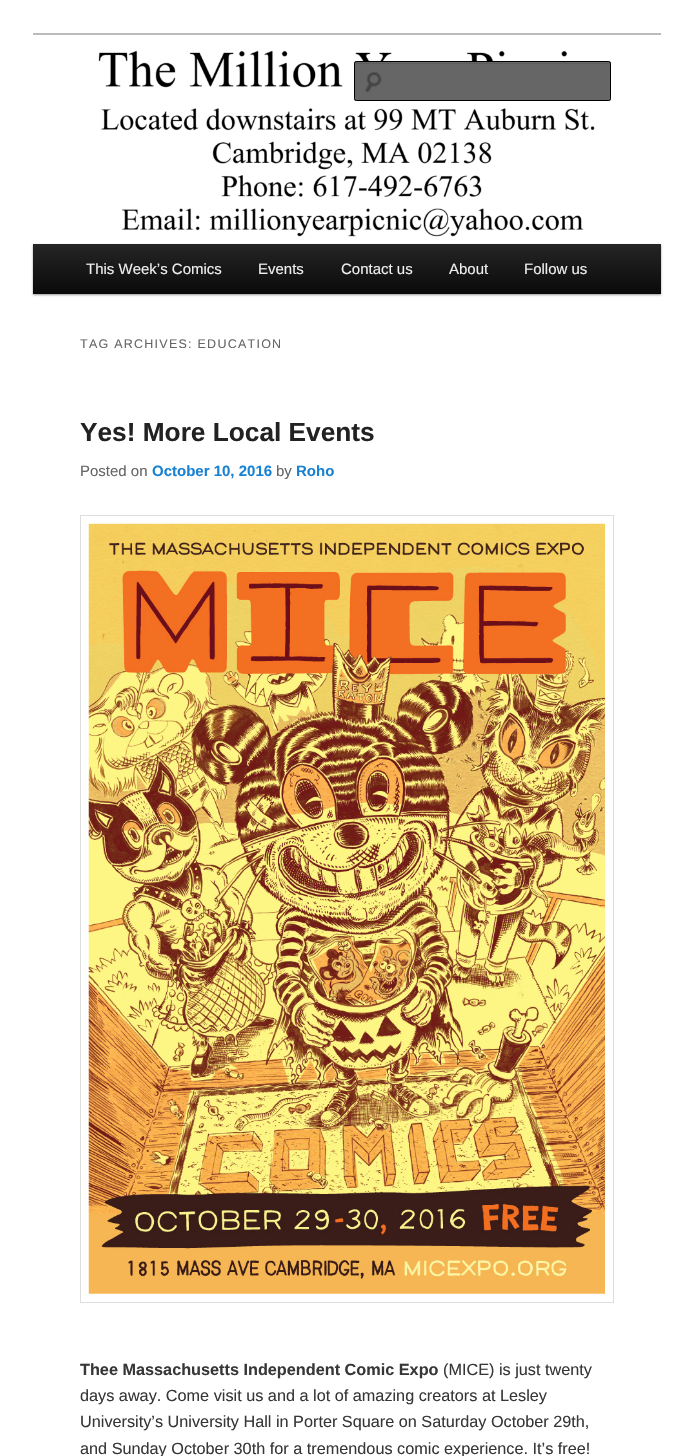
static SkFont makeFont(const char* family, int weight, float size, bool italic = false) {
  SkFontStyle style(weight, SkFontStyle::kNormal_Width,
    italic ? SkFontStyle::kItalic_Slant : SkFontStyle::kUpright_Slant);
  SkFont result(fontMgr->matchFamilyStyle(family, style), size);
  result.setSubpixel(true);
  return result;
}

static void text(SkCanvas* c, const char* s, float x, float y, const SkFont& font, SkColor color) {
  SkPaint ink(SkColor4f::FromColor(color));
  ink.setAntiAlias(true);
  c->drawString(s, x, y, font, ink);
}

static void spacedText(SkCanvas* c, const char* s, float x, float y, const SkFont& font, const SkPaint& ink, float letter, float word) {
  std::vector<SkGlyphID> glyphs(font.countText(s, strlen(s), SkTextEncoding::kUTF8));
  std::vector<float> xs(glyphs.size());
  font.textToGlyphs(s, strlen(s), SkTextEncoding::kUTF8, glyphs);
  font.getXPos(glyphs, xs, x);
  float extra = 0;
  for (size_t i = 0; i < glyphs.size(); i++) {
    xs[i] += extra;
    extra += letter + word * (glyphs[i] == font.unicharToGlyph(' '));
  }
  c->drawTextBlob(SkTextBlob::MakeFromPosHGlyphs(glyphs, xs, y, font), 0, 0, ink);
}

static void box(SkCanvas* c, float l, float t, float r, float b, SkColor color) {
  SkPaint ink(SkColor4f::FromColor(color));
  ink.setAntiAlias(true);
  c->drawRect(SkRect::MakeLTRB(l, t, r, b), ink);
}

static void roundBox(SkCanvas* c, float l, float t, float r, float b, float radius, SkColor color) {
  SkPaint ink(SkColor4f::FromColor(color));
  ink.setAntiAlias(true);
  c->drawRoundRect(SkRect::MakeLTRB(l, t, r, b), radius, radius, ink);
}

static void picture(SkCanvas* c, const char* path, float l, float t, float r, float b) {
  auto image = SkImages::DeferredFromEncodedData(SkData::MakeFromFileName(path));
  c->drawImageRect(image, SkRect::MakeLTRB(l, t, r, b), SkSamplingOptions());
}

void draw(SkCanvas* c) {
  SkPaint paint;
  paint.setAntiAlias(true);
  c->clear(0xffffffff);
  box(c, 33, 33, 661, 35, 0xffbbbbbb);
  picture(c, "img_01.png", 33, 35, 661, 237);
  roundBox(c, 354, 61, 611, 101, 2.5f, 0xff666666);
  picture(c, "img_02.png", 365, 72, 382, 93);
  paint.setColor(0xff5c5c5c);
  c->drawPath(SkPathBuilder().moveTo(356, 64).lineTo(609, 64).lineTo(610, 65).lineTo(610, 63).lineTo(356, 63).cubicTo(355, 63, 355, 64, 355, 65).close().detach(), paint);
  paint.setStyle(SkPaint::kStroke_Style);
  paint.setStrokeWidth(1);
  paint.setColor(0xff000000);
  c->drawRoundRect(SkRect::MakeLTRB(354.5f, 61.5f, 610.5f, 100.5f), 2, 2, paint);
  paint.setStyle(SkPaint::kFill_Style);
  paint.setColor(0x66000000);
  paint.setMaskFilter(SkMaskFilter::MakeBlur(kNormal_SkBlurStyle, 1));
  c->drawRect(SkRect::MakeLTRB(33, 245, 661, 295), paint);
  paint.setMaskFilter(nullptr);
  {
    const SkColor colors[] = {0xff252525, 0xff0a0a0a};
    const float stops[] = {0, 1};
    const SkPoint ends[] = {{347, 244}, {347, 294}};
    paint.setShader(SkGradientShader::MakeLinear(ends, colors, stops, 2, SkTileMode::kClamp));
    paint.setAlpha(255);
  }
  c->drawRect(SkRect::MakeLTRB(33, 244, 661, 294), paint);
  SkFont face1 = makeFont("Liberation Sans", 400, 15);
  text(c, "This Week’s Comics", 86, 274, face1, 0xffeeeeee);
  text(c, "Events", 258, 274, face1, 0xffeeeeee);
  text(c, "Contact us", 341, 274, face1, 0xffeeeeee);
  text(c, "About", 449, 274, face1, 0xffeeeeee);
  text(c, "Follow us", 524, 274, face1, 0xffeeeeee);
  SkFont face2 = makeFont("Liberation Sans", 400, 12.5f);
  paint.setShader(nullptr);
  paint.setColor(0xff666666);
  spacedText(c, "TAG ARCHIVES: EDUCATION", 80, 348, face2, paint, 1.25f, 0);
  SkFont face3 = makeFont("Liberation Sans", 700, 26.25f);
  text(c, "Yes! More Local Events", 80, 441, face3, 0xff222222);
  text(c, "Posted on", 80, 476, face1, 0xff666666);
  SkFont face4 = makeFont("Liberation Sans", 700, 15);
  text(c, "October 10, 2016", 152, 476, face4, 0xff1982d1);
  text(c, "by", 276, 476, face1, 0xff666666);
  text(c, "Roho", 296, 476, face4, 0xff1982d1);
  paint.setStyle(SkPaint::kStroke_Style);
  paint.setColor(0xffdddddd);
  c->drawRect(SkRect::MakeLTRB(80.5f, 515.5f, 613.5f, 1302.5f), paint);
  picture(c, "img_03.png", 88, 523, 605, 1294);
  SkFont face5 = makeFont("Liberation Sans", 700, 16.25f);
  text(c, "Thee Massachusetts Independent Comic Expo", 80, 1375, face5, 0xff373737);
  SkFont face6 = makeFont("Liberation Sans", 400, 16.25f);
  text(c, "(MICE) is just twenty", 443, 1375, face6, 0xff373737);
  text(c, "days away. Come visit us and a lot of amazing creators at Lesley", 80, 1401, face6, 0xff373737);
  text(c, "University’s University Hall in Porter Square on Saturday October 29th,", 80, 1427, face6, 0xff373737);
  text(c, "and Sunday October 30th for a tremendous comic experience. It’s free!", 80, 1454, face6, 0xff373737);
}
